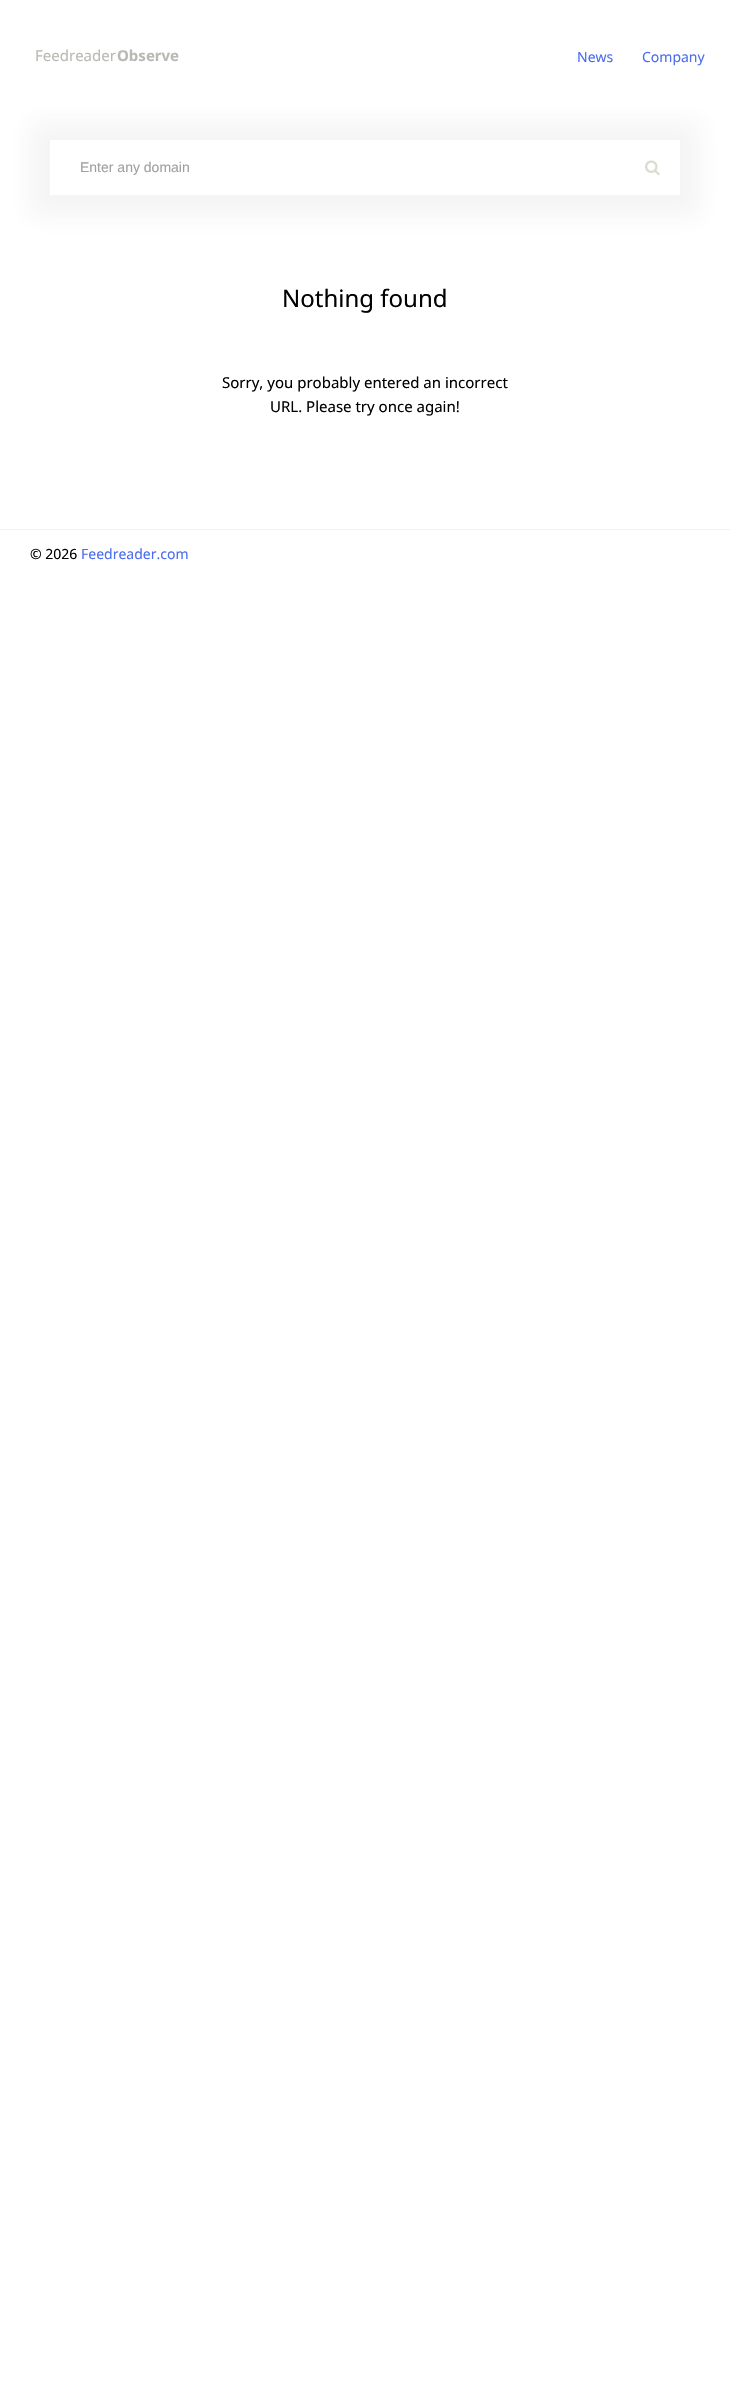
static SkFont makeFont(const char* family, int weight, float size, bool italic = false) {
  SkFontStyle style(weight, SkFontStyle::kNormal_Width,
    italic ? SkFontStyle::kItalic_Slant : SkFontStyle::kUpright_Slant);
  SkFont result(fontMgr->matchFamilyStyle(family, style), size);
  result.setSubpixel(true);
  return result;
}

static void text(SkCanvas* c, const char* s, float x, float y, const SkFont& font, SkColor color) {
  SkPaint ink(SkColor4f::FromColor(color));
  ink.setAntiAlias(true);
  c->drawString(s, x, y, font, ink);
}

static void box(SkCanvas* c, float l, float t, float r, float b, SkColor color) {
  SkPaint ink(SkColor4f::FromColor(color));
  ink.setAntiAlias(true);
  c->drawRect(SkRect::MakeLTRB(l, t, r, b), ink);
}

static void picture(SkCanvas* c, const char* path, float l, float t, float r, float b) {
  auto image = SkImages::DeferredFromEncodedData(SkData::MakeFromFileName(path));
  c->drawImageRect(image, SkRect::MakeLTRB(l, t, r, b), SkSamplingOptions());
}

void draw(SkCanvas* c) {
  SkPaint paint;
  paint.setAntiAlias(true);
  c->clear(0xffffffff);
  SkFont face1 = makeFont("Noto Sans", 400, 15);
  text(c, "Feedreader", 35, 61, face1, 0xffb9bab3);
  SkFont face2 = makeFont("Noto Sans", 700, 15);
  text(c, "Observe", 117, 61, face2, 0xffb9bab3);
  SkFont face3 = makeFont("Noto Sans", 400, 14);
  text(c, "News", 577, 62, face3, 0xff4c6eee);
  text(c, "Company", 642, 62, face3, 0xff4c6eee);
  c->save();
  c->clipPath(SkPathBuilder(SkPathFillType::kEvenOdd).moveTo(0, 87).lineTo(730, 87).lineTo(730, 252).lineTo(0, 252).close().moveTo(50, 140).lineTo(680, 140).lineTo(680, 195).lineTo(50, 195).close().detach(), true);
  paint.setColor(0x0d323232);
  paint.setMaskFilter(SkMaskFilter::MakeBlur(kNormal_SkBlurStyle, 11));
  c->drawRect(SkRect::MakeLTRB(29, 121, 701, 218), paint);
  paint.setMaskFilter(nullptr);
  c->restore();
  SkFont face4 = makeFont("Liberation Sans", 400, 14);
  text(c, "Enter any domain", 80, 172, face4, 0xff9f9f9f);
  picture(c, "img_01.png", 645, 160, 660, 176);
  SkFont face5 = makeFont("Noto Sans", 400, 24);
  text(c, "Nothing found", 282, 307, face5, 0xff000000);
  text(c, "Sorry, you probably entered an incorrect", 222, 388, face1, 0xff000000);
  text(c, "URL. Please try once again!", 270, 412, face1, 0xff000000);
  box(c, 0, 529, 730, 530, 0xfff1f2ec);
  text(c, "© 2026", 30, 559, face3, 0xff000000);
  text(c, "Feedreader.com", 81, 559, face3, 0xff4c6eee);
}
